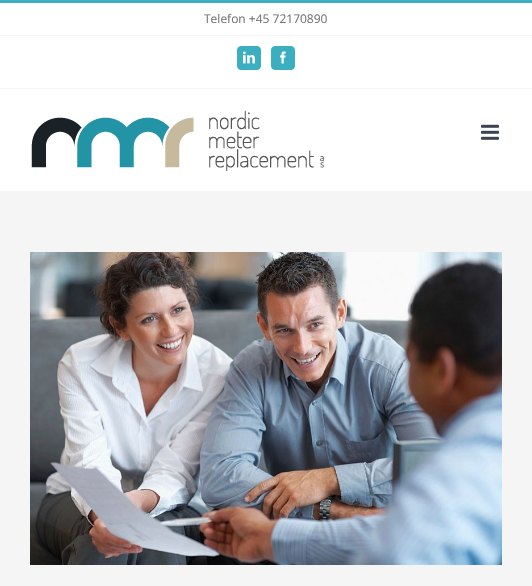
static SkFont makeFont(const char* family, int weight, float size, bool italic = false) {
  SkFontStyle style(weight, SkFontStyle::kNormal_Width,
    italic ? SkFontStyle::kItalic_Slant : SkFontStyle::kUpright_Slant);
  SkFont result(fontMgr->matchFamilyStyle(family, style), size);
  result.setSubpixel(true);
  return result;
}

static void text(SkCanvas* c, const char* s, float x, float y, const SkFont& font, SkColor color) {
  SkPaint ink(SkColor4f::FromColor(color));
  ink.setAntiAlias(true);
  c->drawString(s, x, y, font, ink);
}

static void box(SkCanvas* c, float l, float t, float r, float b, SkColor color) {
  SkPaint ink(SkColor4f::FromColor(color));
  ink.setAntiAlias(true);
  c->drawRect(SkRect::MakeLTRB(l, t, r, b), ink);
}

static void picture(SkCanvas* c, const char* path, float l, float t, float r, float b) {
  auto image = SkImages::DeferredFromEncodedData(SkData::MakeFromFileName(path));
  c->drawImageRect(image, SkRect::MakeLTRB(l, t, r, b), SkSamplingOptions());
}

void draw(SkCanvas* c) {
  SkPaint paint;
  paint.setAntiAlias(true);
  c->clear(0xfff5f5f5);
  box(c, 0, 3, 532, 88, 0xffffffff);
  box(c, 0, 0, 532, 3, 0xff3bafbf);
  box(c, 0, 35, 532, 36, 0xfff5f5f5);
  SkFont face1 = makeFont("Open Sans", 400, 12);
  text(c, "Telefon +45 72170890", 204, 23, face1, 0xff747474);
  paint.setColor(0xff3bafbf);
  c->drawRoundRect(SkRect::MakeLTRB(237.5f, 46.5f, 260.5f, 69.5f), 3.5f, 3.5f, paint);
  paint.setStyle(SkPaint::kStroke_Style);
  paint.setStrokeWidth(1);
  c->drawRoundRect(SkRect::MakeLTRB(237.5f, 46.5f, 260.5f, 69.5f), 3.5f, 3.5f, paint);
  picture(c, "img_01.png", 243, 51, 255, 64);
  paint.setStyle(SkPaint::kFill_Style);
  c->drawRoundRect(SkRect::MakeLTRB(271.5f, 46.5f, 294.5f, 69.5f), 3.5f, 3.5f, paint);
  paint.setStyle(SkPaint::kStroke_Style);
  c->drawRoundRect(SkRect::MakeLTRB(271.5f, 46.5f, 294.5f, 69.5f), 3.5f, 3.5f, paint);
  picture(c, "img_02.png", 280, 51, 286, 64);
  box(c, 0, 89, 532, 191, 0xffffffff);
  picture(c, "img_03.png", 31, 110, 324, 171);
  picture(c, "img_04.png", 481, 124, 499, 140);
  picture(c, "img_05.png", 30, 252, 502, 565);
}
